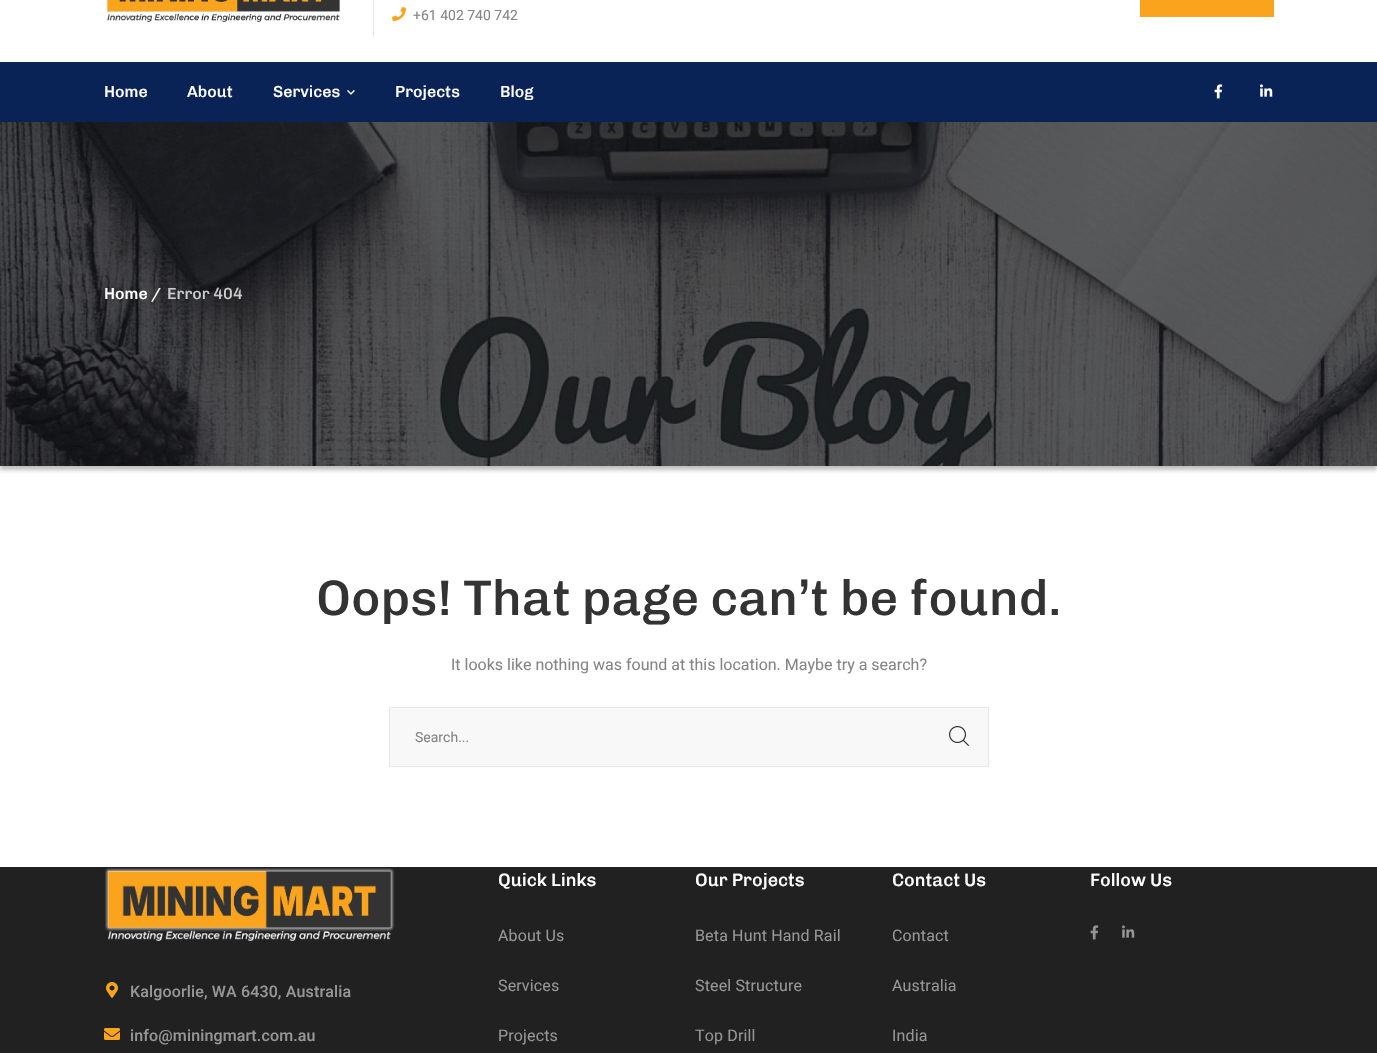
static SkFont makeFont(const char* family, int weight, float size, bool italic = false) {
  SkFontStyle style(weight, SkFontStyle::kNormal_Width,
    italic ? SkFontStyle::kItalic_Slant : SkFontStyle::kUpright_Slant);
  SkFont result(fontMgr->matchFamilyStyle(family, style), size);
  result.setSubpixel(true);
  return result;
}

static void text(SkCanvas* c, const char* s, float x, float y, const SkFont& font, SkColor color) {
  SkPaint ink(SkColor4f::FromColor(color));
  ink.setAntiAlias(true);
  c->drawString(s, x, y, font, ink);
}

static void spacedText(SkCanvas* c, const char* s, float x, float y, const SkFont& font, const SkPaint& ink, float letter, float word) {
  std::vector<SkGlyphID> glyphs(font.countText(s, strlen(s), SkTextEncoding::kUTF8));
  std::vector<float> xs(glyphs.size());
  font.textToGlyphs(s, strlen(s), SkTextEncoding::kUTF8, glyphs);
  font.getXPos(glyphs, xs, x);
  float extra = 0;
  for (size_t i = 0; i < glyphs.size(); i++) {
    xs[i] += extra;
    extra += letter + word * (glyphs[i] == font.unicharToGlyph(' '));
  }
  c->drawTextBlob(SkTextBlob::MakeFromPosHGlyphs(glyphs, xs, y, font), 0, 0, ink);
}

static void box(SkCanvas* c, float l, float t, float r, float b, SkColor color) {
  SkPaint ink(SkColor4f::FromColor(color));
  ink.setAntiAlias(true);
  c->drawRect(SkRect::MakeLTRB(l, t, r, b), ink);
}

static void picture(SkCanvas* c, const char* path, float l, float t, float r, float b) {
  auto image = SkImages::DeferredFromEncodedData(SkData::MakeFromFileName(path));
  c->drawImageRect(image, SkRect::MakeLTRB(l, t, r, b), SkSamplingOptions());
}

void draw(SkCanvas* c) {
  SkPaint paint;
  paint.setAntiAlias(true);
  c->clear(0xffffffff);
  picture(c, "img_01.png", 106, 0, 341, 22);
  box(c, 373, 0, 374, 37, 0xffe7e7e7);
  picture(c, "img_02.png", 392, 7, 406, 21);
  SkFont face1 = makeFont("Roboto", 400, 14);
  text(c, "+61 402 740 742", 413, 20, face1, 0xff858585);
  box(c, 1140, 0, 1274, 17, 0xfffaa41d);
  paint.setColor(0x40000000);
  paint.setMaskFilter(SkMaskFilter::MakeBlur(kNormal_SkBlurStyle, 2));
  c->drawRect(SkRect::MakeLTRB(0, 126, 1377, 470), paint);
  paint.setMaskFilter(nullptr);
  box(c, 0, 62, 1377, 122, 0xff092357);
  SkFont face2 = makeFont("Chivo", 500, 16);
  text(c, "Home", 104, 97, face2, 0xffffffff);
  text(c, "About", 187, 97, face2, 0xffffffff);
  text(c, "Services", 273, 97, face2, 0xffffffff);
  picture(c, "img_03.png", 347, 90, 355, 95);
  text(c, "Projects", 395, 97, face2, 0xffffffff);
  text(c, "Blog", 500, 97, face2, 0xffffffff);
  picture(c, "img_04.png", 1214, 84, 1223, 99);
  picture(c, "img_05.png", 1260, 84, 1273, 97);
  picture(c, "img_06.png", 0, 122, 1377, 466);
  text(c, "Home", 104, 299, face2, 0xffffffff);
  text(c, "/", 151, 299, face2, 0xffffffff);
  text(c, "Error 404", 167, 299, face2, 0xffcacaca);
  SkFont face3 = makeFont("Chivo", 500, 50);
  text(c, "Oops! That page can’t be found.", 316, 615, face3, 0xff333333);
  SkFont face4 = makeFont("Roboto", 400, 16);
  text(c, "It looks like nothing was found at this location. Maybe try a search?", 451, 670, face4, 0xff858585);
  paint.setColor(0xfff8f8f9);
  c->drawRect(SkRect::MakeLTRB(389.5f, 707.5f, 988.5f, 766.5f), paint);
  paint.setStyle(SkPaint::kStroke_Style);
  paint.setStrokeWidth(1);
  paint.setColor(0xffe7e7e7);
  c->drawRect(SkRect::MakeLTRB(389.5f, 707.5f, 988.5f, 766.5f), paint);
  text(c, "Search...", 415, 742, face1, 0xff858585);
  picture(c, "img_07.png", 949, 726, 969, 746);
  box(c, 0, 867, 1377, 1053, 0xff212121);
  SkFont face5 = makeFont("Chivo", 500, 18);
  text(c, "Quick Links", 498, 886, face5, 0xffffffff);
  paint.setStyle(SkPaint::kFill_Style);
  paint.setColor(0xff969696);
  spacedText(c, "About Us", 498, 941, face4, paint, 0.15f, 0);
  spacedText(c, "Services", 498, 991, face4, paint, 0.15f, 0);
  spacedText(c, "Projects", 498, 1041, face4, paint, 0.15f, 0);
  text(c, "Our Projects", 695, 886, face5, 0xffffffff);
  spacedText(c, "Beta Hunt Hand Rail", 695, 941, face4, paint, 0.15f, 0);
  spacedText(c, "Steel Structure", 695, 991, face4, paint, 0.15f, 0);
  spacedText(c, "Top Drill", 695, 1041, face4, paint, 0.15f, 0);
  text(c, "Contact Us", 892, 886, face5, 0xffffffff);
  spacedText(c, "Contact", 892, 941, face4, paint, 0.15f, 0);
  spacedText(c, "Australia", 892, 991, face4, paint, 0.15f, 0);
  spacedText(c, "India", 892, 1041, face4, paint, 0.15f, 0);
  text(c, "Follow Us", 1090, 886, face5, 0xffffffff);
  picture(c, "img_08.png", 1090, 925, 1099, 940);
  picture(c, "img_09.png", 1122, 925, 1135, 938);
  picture(c, "img_10.png", 105, 868, 395, 941);
  picture(c, "img_11.png", 106, 982, 118, 998);
  SkFont face6 = makeFont("Roboto", 500, 16);
  spacedText(c, "Kalgoorlie, WA 6430, Australia", 130, 997, face6, paint, 0.15f, 0);
  picture(c, "img_12.png", 104, 1028, 120, 1040);
  spacedText(c, "info@miningmart.com.au", 130, 1041, face6, paint, 0.15f, 0);
}
